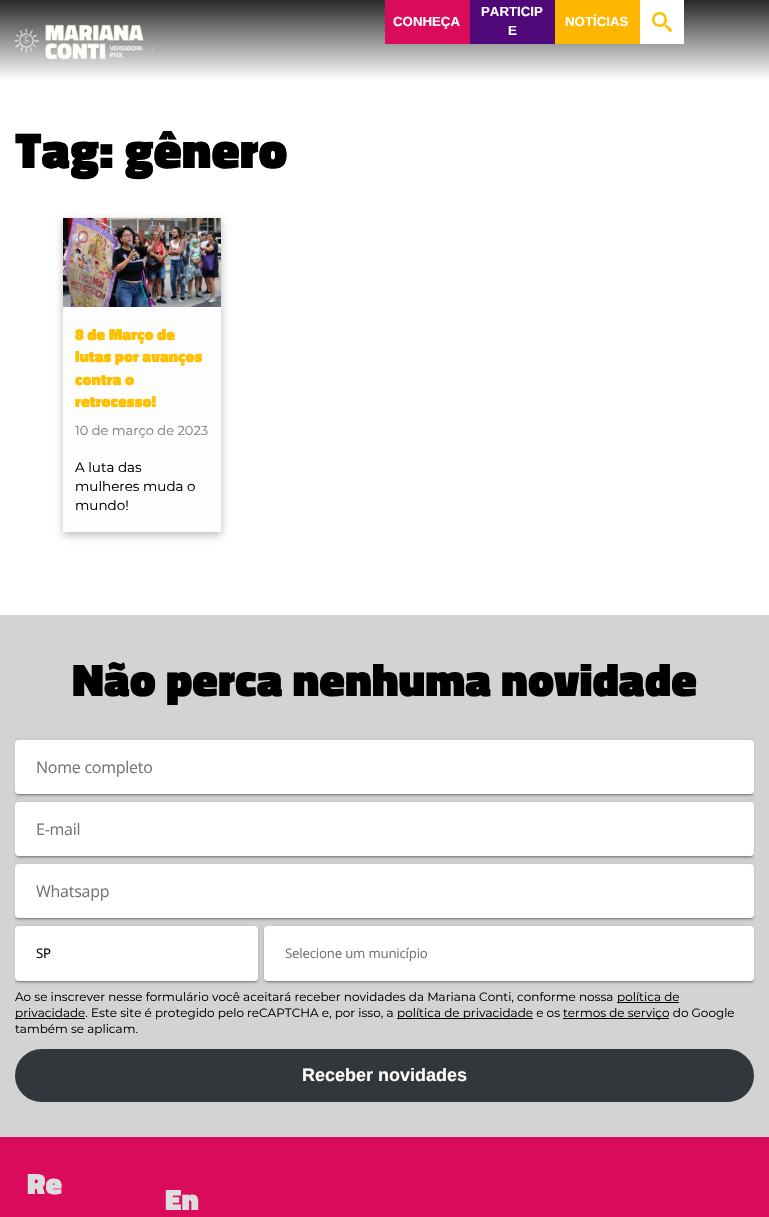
static SkFont makeFont(const char* family, int weight, float size, bool italic = false) {
  SkFontStyle style(weight, SkFontStyle::kNormal_Width,
    italic ? SkFontStyle::kItalic_Slant : SkFontStyle::kUpright_Slant);
  SkFont result(fontMgr->matchFamilyStyle(family, style), size);
  result.setSubpixel(true);
  return result;
}

static void text(SkCanvas* c, const char* s, float x, float y, const SkFont& font, SkColor color) {
  SkPaint ink(SkColor4f::FromColor(color));
  ink.setAntiAlias(true);
  c->drawString(s, x, y, font, ink);
}

static void spacedText(SkCanvas* c, const char* s, float x, float y, const SkFont& font, const SkPaint& ink, float letter, float word) {
  std::vector<SkGlyphID> glyphs(font.countText(s, strlen(s), SkTextEncoding::kUTF8));
  std::vector<float> xs(glyphs.size());
  font.textToGlyphs(s, strlen(s), SkTextEncoding::kUTF8, glyphs);
  font.getXPos(glyphs, xs, x);
  float extra = 0;
  for (size_t i = 0; i < glyphs.size(); i++) {
    xs[i] += extra;
    extra += letter + word * (glyphs[i] == font.unicharToGlyph(' '));
  }
  c->drawTextBlob(SkTextBlob::MakeFromPosHGlyphs(glyphs, xs, y, font), 0, 0, ink);
}

static void box(SkCanvas* c, float l, float t, float r, float b, SkColor color) {
  SkPaint ink(SkColor4f::FromColor(color));
  ink.setAntiAlias(true);
  c->drawRect(SkRect::MakeLTRB(l, t, r, b), ink);
}

static void roundBox(SkCanvas* c, float l, float t, float r, float b, float radius, SkColor color) {
  SkPaint ink(SkColor4f::FromColor(color));
  ink.setAntiAlias(true);
  c->drawRoundRect(SkRect::MakeLTRB(l, t, r, b), radius, radius, ink);
}

static void picture(SkCanvas* c, const char* path, float l, float t, float r, float b) {
  auto image = SkImages::DeferredFromEncodedData(SkData::MakeFromFileName(path));
  c->drawImageRect(image, SkRect::MakeLTRB(l, t, r, b), SkSamplingOptions());
}

void draw(SkCanvas* c) {
  SkPaint paint;
  paint.setAntiAlias(true);
  c->clear(0xffffffff);
  {
    const SkColor colors[] = {0xff282828, 0xffffffff};
    const float stops[] = {0, 1};
    const SkPoint ends[] = {{385, 0}, {385, 80}};
    paint.setShader(SkGradientShader::MakeLinear(ends, colors, stops, 2, SkTileMode::kClamp));
    paint.setAlpha(255);
  }
  c->drawRect(SkRect::MakeLTRB(0, 0, 769, 79), paint);
  picture(c, "img_01.png", 15, 24, 154, 60);
  box(c, 385, 0, 470, 44, 0xffdb0b5b);
  SkFont face1 = makeFont("Liberation Sans", 700, 13.25f);
  text(c, "CONHEÇA", 393, 26, face1, 0xffffffff);
  box(c, 470, 0, 555, 44, 0xff500878);
  text(c, "PARTICIP", 481, 16, face1, 0xffffffff);
  text(c, "E", 508, 35, face1, 0xffffffff);
  box(c, 555, 0, 640, 44, 0xffffb600);
  text(c, "NOTÍCIAS", 565, 26, face1, 0xffffffff);
  box(c, 640, 0, 684, 44, 0xffffffff);
  picture(c, "img_02.png", 652, 12, 672, 32);
  SkFont face2 = makeFont("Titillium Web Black", 900, 51.25f);
  text(c, "Tag: gênero", 15, 168, face2, 0xff000000);
  paint.setShader(nullptr);
  paint.setColor(0x45000000);
  paint.setMaskFilter(SkMaskFilter::MakeBlur(kNormal_SkBlurStyle, 4));
  c->drawRect(SkRect::MakeLTRB(63, 221, 221, 535), paint);
  paint.setMaskFilter(nullptr);
  box(c, 63, 307, 221, 532, 0xfffdfdfd);
  picture(c, "img_03.png", 63, 218, 221, 307);
  SkFont face3 = makeFont("Titillium Web Black", 900, 16);
  text(c, "8 de Março de", 75, 340, face3, 0xfffec000);
  text(c, "lutas por avanços", 75, 362, face3, 0xfffec000);
  text(c, "contra o", 75, 385, face3, 0xfffec000);
  text(c, "retrocesso!", 75, 407, face3, 0xfffec000);
  SkFont face4 = makeFont("Montserrat", 100, 13);
  text(c, "10 de março de 2023", 75, 435, face4, 0xff7f7f7f);
  SkFont face5 = makeFont("Montserrat", 100, 13.5f);
  text(c, "A luta das", 75, 472, face5, 0xff000000);
  text(c, "mulheres muda o", 75, 491, face5, 0xff000000);
  text(c, "mundo!", 75, 510, face5, 0xff000000);
  box(c, 0, 615, 769, 1137, 0xffd3d3d3);
  SkFont face6 = makeFont("Titillium Web Black", 900, 46.4f);
  text(c, "Não perca nenhuma novidade", 72, 696, face6, 0xff000000);
  c->save();
  c->clipRect(SkRect::MakeLTRB(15, 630, 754, 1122));
  paint.setColor(0x1f000000);
  paint.setMaskFilter(SkMaskFilter::MakeBlur(kNormal_SkBlurStyle, 2.5f));
  c->drawRoundRect(SkRect::MakeLTRB(15, 741, 754, 795), 4, 4, paint);
  paint.setMaskFilter(nullptr);
  c->restore();
  paint.setColor(0x24000000);
  paint.setMaskFilter(SkMaskFilter::MakeBlur(kNormal_SkBlurStyle, 1));
  c->drawRoundRect(SkRect::MakeLTRB(15, 742, 754, 796), 4, 4, paint);
  paint.setMaskFilter(nullptr);
  paint.setColor(0x33000000);
  paint.setMaskFilter(SkMaskFilter::MakeBlur(kNormal_SkBlurStyle, 0.5f));
  c->drawRoundRect(SkRect::MakeLTRB(17, 745, 752, 795), 2, 2, paint);
  paint.setMaskFilter(nullptr);
  roundBox(c, 15, 740, 754, 794, 4, 0xffffffff);
  SkFont face7 = makeFont("Open Sans", 400, 16);
  paint.setColor(0xff757575);
  spacedText(c, "Nome completo", 36, 773, face7, paint, -0.25f, 0);
  c->save();
  c->clipRect(SkRect::MakeLTRB(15, 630, 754, 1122));
  paint.setColor(0x1f000000);
  paint.setMaskFilter(SkMaskFilter::MakeBlur(kNormal_SkBlurStyle, 2.5f));
  c->drawRoundRect(SkRect::MakeLTRB(15, 803, 754, 857), 4, 4, paint);
  paint.setMaskFilter(nullptr);
  c->restore();
  paint.setColor(0x24000000);
  paint.setMaskFilter(SkMaskFilter::MakeBlur(kNormal_SkBlurStyle, 1));
  c->drawRoundRect(SkRect::MakeLTRB(15, 804, 754, 858), 4, 4, paint);
  paint.setMaskFilter(nullptr);
  paint.setColor(0x33000000);
  paint.setMaskFilter(SkMaskFilter::MakeBlur(kNormal_SkBlurStyle, 0.5f));
  c->drawRoundRect(SkRect::MakeLTRB(17, 807, 752, 857), 2, 2, paint);
  paint.setMaskFilter(nullptr);
  roundBox(c, 15, 802, 754, 856, 4, 0xffffffff);
  paint.setColor(0xff757575);
  spacedText(c, "E-mail", 36, 835, face7, paint, -0.25f, 0);
  c->save();
  c->clipRect(SkRect::MakeLTRB(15, 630, 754, 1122));
  paint.setColor(0x1f000000);
  paint.setMaskFilter(SkMaskFilter::MakeBlur(kNormal_SkBlurStyle, 2.5f));
  c->drawRoundRect(SkRect::MakeLTRB(15, 865, 754, 919), 4, 4, paint);
  paint.setMaskFilter(nullptr);
  c->restore();
  paint.setColor(0x24000000);
  paint.setMaskFilter(SkMaskFilter::MakeBlur(kNormal_SkBlurStyle, 1));
  c->drawRoundRect(SkRect::MakeLTRB(15, 866, 754, 920), 4, 4, paint);
  paint.setMaskFilter(nullptr);
  paint.setColor(0x33000000);
  paint.setMaskFilter(SkMaskFilter::MakeBlur(kNormal_SkBlurStyle, 0.5f));
  c->drawRoundRect(SkRect::MakeLTRB(17, 869, 752, 919), 2, 2, paint);
  paint.setMaskFilter(nullptr);
  roundBox(c, 15, 864, 754, 918, 4, 0xffffffff);
  paint.setColor(0xff757575);
  spacedText(c, "Whatsapp", 36, 897, face7, paint, -0.25f, 0);
  c->save();
  c->clipRect(SkRect::MakeLTRB(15, 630, 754, 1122));
  paint.setColor(0x1f000000);
  paint.setMaskFilter(SkMaskFilter::MakeBlur(kNormal_SkBlurStyle, 2.5f));
  c->drawRoundRect(SkRect::MakeLTRB(15, 927, 258, 982), 4, 4, paint);
  paint.setMaskFilter(nullptr);
  c->restore();
  paint.setColor(0x24000000);
  paint.setMaskFilter(SkMaskFilter::MakeBlur(kNormal_SkBlurStyle, 1));
  c->drawRoundRect(SkRect::MakeLTRB(15, 928, 258, 983), 4, 4, paint);
  paint.setMaskFilter(nullptr);
  paint.setColor(0x33000000);
  paint.setMaskFilter(SkMaskFilter::MakeBlur(kNormal_SkBlurStyle, 0.5f));
  c->drawRoundRect(SkRect::MakeLTRB(17, 931, 256, 982), 2, 2, paint);
  paint.setMaskFilter(nullptr);
  roundBox(c, 15, 926, 258, 981, 4, 0xffffffff);
  SkFont face8 = makeFont("Open Sans", 400, 13.25f);
  paint.setColor(0xff000000);
  spacedText(c, "SP", 36, 958, face8, paint, -0.2f, 0);
  c->save();
  c->clipRect(SkRect::MakeLTRB(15, 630, 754, 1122));
  paint.setColor(0x1f000000);
  paint.setMaskFilter(SkMaskFilter::MakeBlur(kNormal_SkBlurStyle, 2.5f));
  c->drawRoundRect(SkRect::MakeLTRB(264, 927, 754, 982), 4, 4, paint);
  paint.setMaskFilter(nullptr);
  c->restore();
  paint.setColor(0x24000000);
  paint.setMaskFilter(SkMaskFilter::MakeBlur(kNormal_SkBlurStyle, 1));
  c->drawRoundRect(SkRect::MakeLTRB(264, 928, 754, 983), 4, 4, paint);
  paint.setMaskFilter(nullptr);
  paint.setColor(0x33000000);
  paint.setMaskFilter(SkMaskFilter::MakeBlur(kNormal_SkBlurStyle, 0.5f));
  c->drawRoundRect(SkRect::MakeLTRB(266, 931, 752, 982), 2, 2, paint);
  paint.setMaskFilter(nullptr);
  roundBox(c, 264, 926, 754, 981, 4, 0xffffffff);
  paint.setColor(0xff757575);
  spacedText(c, "Selecione um município", 285, 958, face8, paint, -0.2f, 0);
  SkFont face9 = makeFont("Montserrat", 100, 12);
  text(c, "Ao se inscrever nesse formulário você aceitará receber novidades da Mariana Conti, conforme nossa", 15, 1001, face9, 0xff000000);
  box(c, 617, 1002, 679, 1003, 0xff000000);
  text(c, "política de", 617, 1001, face9, 0xff000000);
  box(c, 15, 1018, 85, 1019, 0xff000000);
  text(c, "privacidade. Este site é protegido pelo reCAPTCHA e, por isso, a", 15, 1017, face9, 0xff000000);
  box(c, 397, 1018, 533, 1019, 0xff000000);
  text(c, "política de privacidade e os", 397, 1017, face9, 0xff000000);
  box(c, 563, 1018, 669, 1019, 0xff000000);
  text(c, "termos de serviço do Google", 563, 1017, face9, 0xff000000);
  text(c, "também se aplicam.", 15, 1033, face9, 0xff000000);
  roundBox(c, 15, 1049, 754, 1102, 26.5f, 0xff32373c);
  SkFont face10 = makeFont("Liberation Sans", 700, 18);
  text(c, "Receber novidades", 302, 1081, face10, 0xffffffff);
  box(c, 0, 1137, 769, 1217, 0xffdb0b5b);
  SkFont face11 = makeFont("Titillium Web Black", 900, 30);
  text(c, "Re", 27, 1194, face11, 0xffdddddd);
  text(c, "En", 165, 1210, face11, 0xffdddddd);
}
